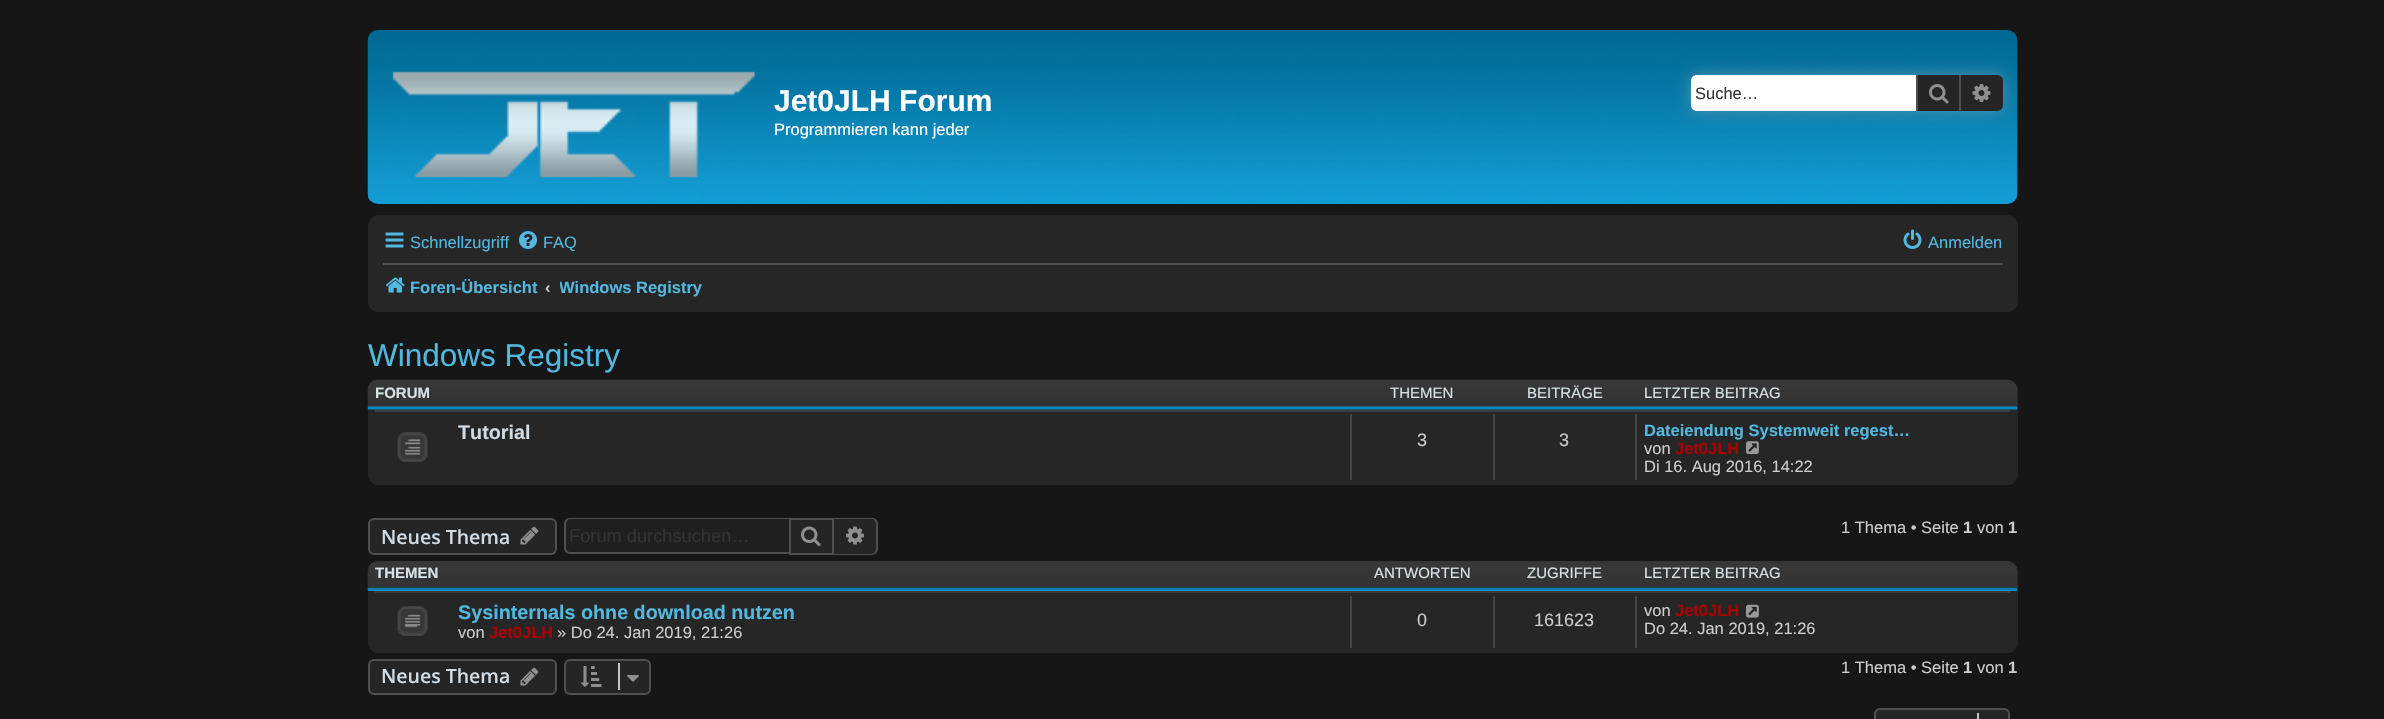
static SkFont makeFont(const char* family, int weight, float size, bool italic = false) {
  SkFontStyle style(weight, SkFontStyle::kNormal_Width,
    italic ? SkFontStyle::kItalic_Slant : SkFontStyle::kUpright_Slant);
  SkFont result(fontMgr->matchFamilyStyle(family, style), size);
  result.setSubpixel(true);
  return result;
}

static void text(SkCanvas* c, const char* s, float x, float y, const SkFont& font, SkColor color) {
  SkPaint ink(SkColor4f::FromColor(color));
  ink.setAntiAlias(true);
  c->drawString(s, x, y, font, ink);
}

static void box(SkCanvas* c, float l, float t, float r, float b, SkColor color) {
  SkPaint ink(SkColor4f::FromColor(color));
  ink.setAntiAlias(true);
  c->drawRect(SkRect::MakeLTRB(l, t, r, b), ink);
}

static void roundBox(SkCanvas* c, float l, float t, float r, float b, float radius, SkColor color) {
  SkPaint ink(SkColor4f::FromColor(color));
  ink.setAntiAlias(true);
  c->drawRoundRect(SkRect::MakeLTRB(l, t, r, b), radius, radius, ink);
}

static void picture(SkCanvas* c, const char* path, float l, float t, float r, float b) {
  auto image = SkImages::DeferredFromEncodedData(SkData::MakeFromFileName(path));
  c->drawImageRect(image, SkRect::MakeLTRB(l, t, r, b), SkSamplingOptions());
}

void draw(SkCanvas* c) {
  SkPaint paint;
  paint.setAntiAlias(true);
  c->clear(0xff161616);
  picture(c, "img_01.png", 367, 30, 2018, 204);
  picture(c, "img_02.png", 392, 71, 755, 178);
  SkFont face1 = makeFont("Liberation Sans", 700, 30);
  text(c, "Jet0JLH Forum", 774, 111, face1, 0xffffffff);
  SkFont face2 = makeFont("Liberation Sans", 400, 16.5f);
  text(c, "Programmieren kann jeder", 774, 135, face2, 0xffffffff);
  paint.setColor(0xff5490aa);
  paint.setMaskFilter(SkMaskFilter::MakeBlur(kNormal_SkBlurStyle, 7.5f));
  c->drawRoundRect(SkRect::MakeLTRB(1691, 75, 2003, 111), 6, 6, paint);
  paint.setMaskFilter(nullptr);
  paint.setColor(0xffffffff);
  c->drawPath(SkPathBuilder().moveTo(1697, 75).lineTo(1916, 75).lineTo(1916, 111).lineTo(1697, 111).cubicTo(1693.5f, 111, 1691, 108.5f, 1691, 105).lineTo(1691, 81).cubicTo(1691, 77.5f, 1693.5f, 75, 1697, 75).close().detach(), paint);
  text(c, "Suche…", 1695, 99, face2, 0xff333333);
  box(c, 1918, 75, 1959, 111, 0xff252525);
  box(c, 1959, 75, 1961, 111, 0xff4f4f4f);
  box(c, 1916, 75, 1918, 111, 0xff4f4f4f);
  picture(c, "img_03.png", 1929, 84, 1949, 104);
  paint.setColor(0xff252525);
  c->drawPath(SkPathBuilder().moveTo(1961, 75).lineTo(1997, 75).cubicTo(2000.5f, 75, 2003, 77.5f, 2003, 81).lineTo(2003, 105).cubicTo(2003, 108.5f, 2000.5f, 111, 1997, 111).lineTo(1961, 111).close().detach(), paint);
  picture(c, "img_04.png", 1972, 84, 1991, 102);
  roundBox(c, 368, 215, 2018, 312, 11, 0xff262626);
  picture(c, "img_05.png", 385, 232, 404, 248);
  text(c, "Schnellzugriff", 410, 248, face2, 0xff51b8e0);
  picture(c, "img_06.png", 519, 231, 537, 249);
  text(c, "FAQ", 543, 248, face2, 0xff51b8e0);
  picture(c, "img_07.png", 1903, 229, 1922, 249);
  text(c, "Anmelden", 1928, 248, face2, 0xff51b8e0);
  box(c, 383, 263, 2003, 265, 0xff4f4f4f);
  picture(c, "img_08.png", 385, 277, 405, 293);
  SkFont face3 = makeFont("Liberation Sans", 700, 16.5f);
  text(c, "Foren-Übersicht", 410, 293, face3, 0xff51b8e0);
  text(c, "‹", 545, 293, face3, 0xffcccccc);
  c->save();
  c->clipRect(SkRect::MakeLTRB(560, 269, 702, 305));
  text(c, "Windows Registry", 559, 293, face3, 0xff51b8e0);
  c->restore();
  SkFont face4 = makeFont("Liberation Sans", 400, 31.5f);
  text(c, "Windows Registry", 368, 366, face4, 0xff51b8e0);
  roundBox(c, 368, 380, 2018, 485, 11, 0xff262626);
  picture(c, "img_09.png", 367, 379, 2018, 410);
  SkFont face5 = makeFont("Liberation Sans", 700, 15);
  text(c, "FORUM", 375, 398, face5, 0xffd8e2e6);
  SkFont face6 = makeFont("Liberation Sans", 400, 15);
  text(c, "THEMEN", 1390, 398, face6, 0xffd8e2e6);
  text(c, "BEITRÄGE", 1527, 398, face6, 0xffd8e2e6);
  text(c, "LETZTER BEITRAG", 1644, 398, face6, 0xffd8e2e6);
  box(c, 375, 410, 2010, 412, 0xff3d3d3d);
  box(c, 375, 484, 2010, 485, 0xff282828);
  picture(c, "img_10.png", 397, 432, 428, 462);
  SkFont face7 = makeFont("Liberation Sans", 700, 19.75f);
  text(c, "Tutorial", 458, 439, face7, 0xffcfdbe5);
  box(c, 1350, 414, 1352, 480, 0xff454545);
  SkFont face8 = makeFont("Liberation Sans", 400, 18);
  text(c, "3", 1417, 446, face8, 0xffcccccc);
  box(c, 1493, 414, 1495, 480, 0xff454545);
  text(c, "3", 1559, 446, face8, 0xffcccccc);
  box(c, 1635, 414, 1637, 480, 0xff454545);
  text(c, "Dateiendung Systemweit regest…", 1644, 436, face3, 0xff51b8e0);
  text(c, "von", 1644, 454, face2, 0xffcccccc);
  text(c, "Jet0JLH", 1675, 454, face3, 0xffaa0000);
  picture(c, "img_11.png", 1746, 441, 1759, 455);
  text(c, "Di 16. Aug 2016, 14:22", 1644, 472, face2, 0xffcccccc);
  c->drawRoundRect(SkRect::MakeLTRB(369, 519, 556, 554), 5, 5, paint);
  paint.setStyle(SkPaint::kStroke_Style);
  paint.setStrokeWidth(2);
  paint.setColor(0xff4f4f4f);
  c->drawRoundRect(SkRect::MakeLTRB(369, 519, 556, 554), 5, 5, paint);
  SkFont face9 = makeFont("Open Sans", 600, 19.5f);
  text(c, "Neues Thema", 381, 544, face9, 0xffcfdbe5);
  picture(c, "img_12.png", 520, 526, 539, 545);
  paint.setStyle(SkPaint::kFill_Style);
  paint.setColor(0xff1f1f1f);
  c->drawPath(SkPathBuilder().moveTo(571, 519).lineTo(789, 519).lineTo(789, 552).lineTo(571, 552).cubicTo(568, 552, 566, 550, 566, 547).lineTo(566, 524).cubicTo(566, 521, 568, 519, 571, 519).close().detach(), paint);
  paint.setColor(0xff4f4f4f);
  c->drawPath(SkPathBuilder(SkPathFillType::kEvenOdd).moveTo(570, 518).lineTo(789, 518).lineTo(789, 554).lineTo(570, 554).cubicTo(567, 554, 564, 551, 564, 548).lineTo(564, 524).cubicTo(564, 520, 567, 518, 570, 518).close().moveTo(570, 519).lineTo(789, 519).lineTo(789, 552).lineTo(570, 552).cubicTo(568, 552, 566, 550, 566, 548).lineTo(566, 524).cubicTo(566, 521, 568, 519, 570, 519).close().detach(), paint);
  SkFont face10 = makeFont("Liberation Sans", 400, 18.25f);
  text(c, "Forum durchsuchen…", 569, 542, face10, 0xff333333);
  paint.setColor(0xff252525);
  c->drawRect(SkRect::MakeLTRB(790, 519, 833, 554), paint);
  paint.setStyle(SkPaint::kStroke_Style);
  paint.setColor(0xff4f4f4f);
  c->drawRect(SkRect::MakeLTRB(790, 519, 833, 554), paint);
  picture(c, "img_13.png", 801, 526, 821, 546);
  paint.setStyle(SkPaint::kFill_Style);
  paint.setColor(0xff252525);
  c->drawPath(SkPathBuilder().moveTo(834, 519).lineTo(871, 519).cubicTo(874, 519, 876, 521, 876, 524).lineTo(876, 549).cubicTo(876, 552, 874, 554, 871, 554).lineTo(834, 554).close().detach(), paint);
  paint.setColor(0xff4f4f4f);
  c->drawPath(SkPathBuilder(SkPathFillType::kEvenOdd).moveTo(834, 518).lineTo(872, 518).cubicTo(875, 518, 878, 520, 878, 524).lineTo(878, 549).cubicTo(878, 552, 875, 555, 872, 555).lineTo(834, 555).close().moveTo(834, 519).lineTo(872, 519).cubicTo(874, 519, 876, 521, 876, 524).lineTo(876, 549).cubicTo(876, 551, 874, 554, 872, 554).lineTo(834, 554).close().detach(), paint);
  picture(c, "img_14.png", 846, 526, 864, 545);
  text(c, "1 Thema • Seite", 1841, 533, face2, 0xffcccccc);
  text(c, "1", 1963, 533, face3, 0xffcccccc);
  text(c, "von", 1977, 533, face2, 0xffcccccc);
  text(c, "1", 2008, 533, face3, 0xffcccccc);
  roundBox(c, 368, 561, 2018, 653, 11, 0xff262626);
  picture(c, "img_15.png", 367, 561, 2018, 591);
  text(c, "THEMEN", 375, 578, face5, 0xffd8e2e6);
  text(c, "ANTWORTEN", 1374, 578, face6, 0xffd8e2e6);
  text(c, "ZUGRIFFE", 1527, 578, face6, 0xffd8e2e6);
  text(c, "LETZTER BEITRAG", 1644, 578, face6, 0xffd8e2e6);
  box(c, 375, 591, 2010, 593, 0xff3d3d3d);
  box(c, 375, 652, 2010, 653, 0xff282828);
  picture(c, "img_16.png", 397, 606, 428, 636);
  text(c, "Sysinternals ohne download nutzen", 458, 619, face7, 0xff51b8e0);
  text(c, "von", 458, 638, face2, 0xffcccccc);
  text(c, "Jet0JLH", 489, 638, face3, 0xffaa0000);
  text(c, "» Do 24. Jan 2019, 21:26", 557, 638, face2, 0xffcccccc);
  box(c, 1350, 596, 1352, 648, 0xff454545);
  text(c, "0", 1417, 626, face8, 0xffcccccc);
  box(c, 1493, 596, 1495, 648, 0xff454545);
  text(c, "161623", 1534, 626, face8, 0xffcccccc);
  box(c, 1635, 596, 1637, 648, 0xff454545);
  text(c, "von", 1644, 616, face2, 0xffcccccc);
  text(c, "Jet0JLH", 1675, 616, face3, 0xffaa0000);
  picture(c, "img_17.png", 1746, 604, 1759, 618);
  text(c, "Do 24. Jan 2019, 21:26", 1644, 634, face2, 0xffcccccc);
  paint.setColor(0xff252525);
  c->drawRoundRect(SkRect::MakeLTRB(369, 660, 556, 694), 5, 5, paint);
  paint.setStyle(SkPaint::kStroke_Style);
  paint.setColor(0xff4f4f4f);
  c->drawRoundRect(SkRect::MakeLTRB(369, 660, 556, 694), 5, 5, paint);
  text(c, "Neues Thema", 381, 683, face9, 0xffcfdbe5);
  picture(c, "img_12.png", 520, 667, 539, 686);
  paint.setStyle(SkPaint::kFill_Style);
  paint.setColor(0xff252525);
  c->drawRoundRect(SkRect::MakeLTRB(565, 660, 650, 694), 5, 5, paint);
  paint.setStyle(SkPaint::kStroke_Style);
  paint.setColor(0xff4f4f4f);
  c->drawRoundRect(SkRect::MakeLTRB(565, 660, 650, 694), 5, 5, paint);
  picture(c, "img_18.png", 581, 666, 602, 687);
  box(c, 618, 663, 620, 690, 0xffc7c3bf);
  picture(c, "img_19.png", 627, 675, 639, 682);
  text(c, "1 Thema • Seite", 1841, 673, face2, 0xffcccccc);
  text(c, "1", 1963, 673, face3, 0xffcccccc);
  text(c, "von", 1977, 673, face2, 0xffcccccc);
  text(c, "1", 2008, 673, face3, 0xffcccccc);
  paint.setStyle(SkPaint::kFill_Style);
  paint.setColor(0xff252525);
  c->drawRoundRect(SkRect::MakeLTRB(1875, 709, 2009, 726), 5, 5, paint);
  paint.setStyle(SkPaint::kStroke_Style);
  paint.setColor(0xff4f4f4f);
  c->drawRoundRect(SkRect::MakeLTRB(1875, 709, 2009, 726), 5, 5, paint);
  box(c, 1977, 713, 1979, 719, 0xffc7c3bf);
}
